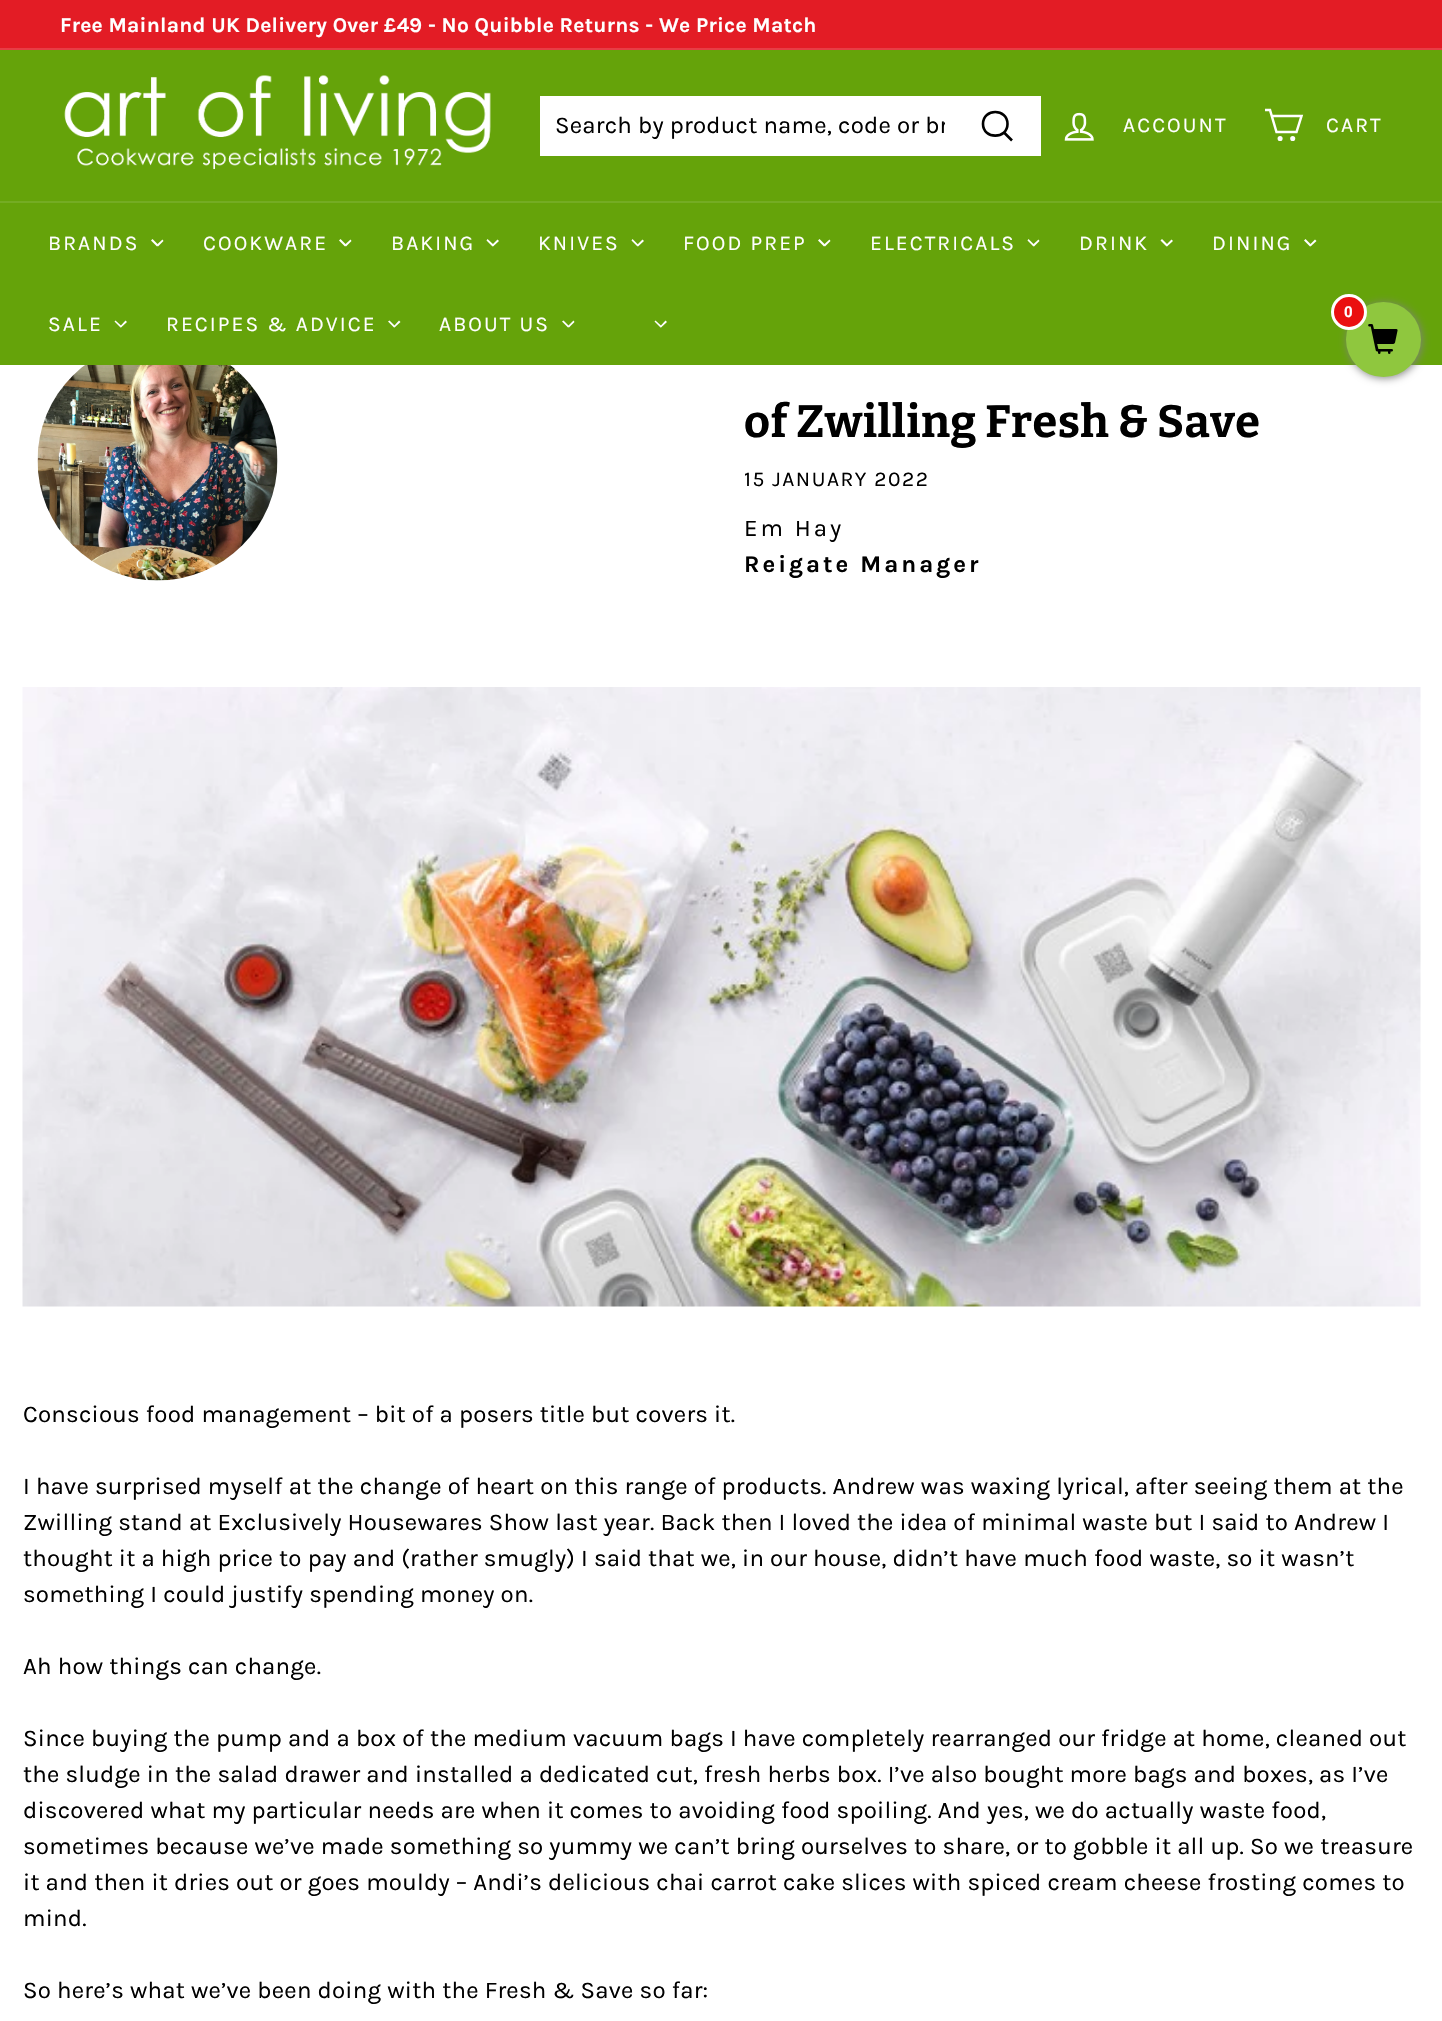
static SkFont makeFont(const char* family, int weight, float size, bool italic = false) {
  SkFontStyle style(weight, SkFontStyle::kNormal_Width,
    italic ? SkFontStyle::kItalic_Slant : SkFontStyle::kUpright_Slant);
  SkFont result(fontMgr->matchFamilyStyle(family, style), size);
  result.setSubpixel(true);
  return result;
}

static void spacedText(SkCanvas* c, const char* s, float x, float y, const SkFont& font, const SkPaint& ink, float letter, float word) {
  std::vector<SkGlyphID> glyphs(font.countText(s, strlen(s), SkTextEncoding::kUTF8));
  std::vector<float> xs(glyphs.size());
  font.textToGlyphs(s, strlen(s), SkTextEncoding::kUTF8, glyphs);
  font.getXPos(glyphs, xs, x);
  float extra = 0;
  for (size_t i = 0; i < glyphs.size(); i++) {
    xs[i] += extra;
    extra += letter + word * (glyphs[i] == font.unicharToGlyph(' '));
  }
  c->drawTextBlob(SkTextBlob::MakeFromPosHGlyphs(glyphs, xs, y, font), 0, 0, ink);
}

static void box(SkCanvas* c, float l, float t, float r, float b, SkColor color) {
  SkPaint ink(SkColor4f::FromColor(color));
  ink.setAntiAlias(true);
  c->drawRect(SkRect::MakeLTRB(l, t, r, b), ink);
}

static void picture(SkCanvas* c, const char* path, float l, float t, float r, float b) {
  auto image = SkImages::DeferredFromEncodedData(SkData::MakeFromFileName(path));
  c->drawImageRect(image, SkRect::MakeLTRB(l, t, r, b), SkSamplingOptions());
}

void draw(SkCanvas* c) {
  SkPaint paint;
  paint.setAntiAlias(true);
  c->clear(0xffffffff);
  box(c, 0, 0, 1442, 48, 0xffe31c25);
  SkFont face1 = makeFont("Karla", 700, 21);
  paint.setColor(0xffffffff);
  spacedText(c, "Free Mainland UK Delivery Over £49 - No Quibble Returns - We Price Match", 60, 32, face1, paint, 0.24f, 0);
  box(c, 0, 48, 1442, 50, 0xffe73e46);
  box(c, 0, 50, 1442, 201, 0xff65a30a);
  picture(c, "img_01.png", 64, 75, 491, 170);
  box(c, 540, 96, 1041, 156, 0xffffffff);
  c->save();
  c->clipRect(SkRect::MakeLTRB(555, 111, 945, 140));
  SkFont face2 = makeFont("Karla", 400, 24);
  paint.setColor(0xff000000);
  spacedText(c, "Search by product name, code or br", 555, 133, face2, paint, 0.24f, 0);
  c->restore();
  paint.setStyle(SkPaint::kStroke_Style);
  paint.setStrokeWidth(2.6f);
  c->drawPath(SkPathBuilder().moveTo(1007.5f, 124).cubicTo(1007.5f, 139.5f, 983, 139.5f, 983, 124).cubicTo(983, 108, 1007.5f, 108, 1007.5f, 124).close().moveTo(1012, 140.5f).lineTo(1004, 132.5f).detach(), paint);
  picture(c, "img_02.png", 1064, 112, 1094, 141);
  SkFont face3 = makeFont("Karla", 400, 21);
  paint.setStyle(SkPaint::kFill_Style);
  paint.setColor(0xffffffff);
  spacedText(c, "ACCOUNT", 1123, 132, face3, paint, 2.1f, 0);
  paint.setStyle(SkPaint::kStroke_Style);
  paint.setStrokeWidth(2.5f);
  c->drawPath(SkPathBuilder().moveTo(1272, 116).lineTo(1301.5f, 116).lineTo(1296.5f, 132).lineTo(1276.5f, 132).lineTo(1270, 110).lineTo(1265, 110).detach(), paint);
  c->drawCircle(1280.1f, 138.5f, 1.3f, paint);
  c->drawCircle(1292.7f, 138.5f, 1.3f, paint);
  paint.setStyle(SkPaint::kFill_Style);
  spacedText(c, "CART", 1326, 132, face3, paint, 2.1f, 0);
  box(c, 0, 203, 1442, 365, 0xff65a30a);
  box(c, 0, 201, 1442, 203, 0xff74ac23);
  spacedText(c, "BRANDS", 48, 250, face3, paint, 2.1f, 0);
  c->drawPath(SkPathBuilder().moveTo(162.5f, 239.5f).lineTo(163.5f, 241).lineTo(158, 246.5f).lineTo(156.5f, 245).close().detach(), paint);
  c->drawPath(SkPathBuilder().moveTo(152.5f, 239).lineTo(158.5f, 245).lineTo(157, 246.5f).lineTo(151, 240.5f).close().detach(), paint);
  spacedText(c, "COOKWARE", 203, 250, face3, paint, 2.1f, 0);
  c->drawPath(SkPathBuilder().moveTo(350.5f, 239.5f).lineTo(351.5f, 241).lineTo(346, 246.5f).lineTo(344.5f, 245).close().detach(), paint);
  c->drawPath(SkPathBuilder().moveTo(340.5f, 239).lineTo(346.5f, 245).lineTo(345, 246.5f).lineTo(339, 240.5f).close().detach(), paint);
  spacedText(c, "BAKING", 391, 250, face3, paint, 2.1f, 0);
  c->drawPath(SkPathBuilder().moveTo(497.5f, 239.5f).lineTo(499, 241).lineTo(493, 246.5f).lineTo(492, 245).close().detach(), paint);
  c->drawPath(SkPathBuilder().moveTo(487.5f, 239).lineTo(494, 245).lineTo(492.5f, 246.5f).lineTo(486.5f, 240.5f).close().detach(), paint);
  spacedText(c, "KNIVES", 538, 250, face3, paint, 2.1f, 0);
  c->drawPath(SkPathBuilder().moveTo(642.5f, 239.5f).lineTo(644, 241).lineTo(638, 246.5f).lineTo(637, 245).close().detach(), paint);
  c->drawPath(SkPathBuilder().moveTo(632.5f, 239).lineTo(638.5f, 245).lineTo(637.5f, 246.5f).lineTo(631.5f, 240.5f).close().detach(), paint);
  spacedText(c, "FOOD PREP", 683, 250, face3, paint, 2.1f, 0);
  c->drawPath(SkPathBuilder().moveTo(829.5f, 239.5f).lineTo(830.5f, 241).lineTo(825, 246.5f).lineTo(823.5f, 245).close().detach(), paint);
  c->drawPath(SkPathBuilder().moveTo(819.5f, 239).lineTo(825.5f, 245).lineTo(824, 246.5f).lineTo(818, 240.5f).close().detach(), paint);
  spacedText(c, "ELECTRICALS", 870, 250, face3, paint, 2.1f, 0);
  c->drawPath(SkPathBuilder().moveTo(1038.5f, 239.5f).lineTo(1039.5f, 241).lineTo(1034, 246.5f).lineTo(1032.5f, 245).close().detach(), paint);
  c->drawPath(SkPathBuilder().moveTo(1028.5f, 239).lineTo(1034.5f, 245).lineTo(1033.5f, 246.5f).lineTo(1027.5f, 240.5f).close().detach(), paint);
  spacedText(c, "DRINK", 1079, 250, face3, paint, 2.1f, 0);
  c->drawPath(SkPathBuilder().moveTo(1171.5f, 239.5f).lineTo(1173, 241).lineTo(1167, 246.5f).lineTo(1166, 245).close().detach(), paint);
  c->drawPath(SkPathBuilder().moveTo(1162, 239).lineTo(1168, 245).lineTo(1166.5f, 246.5f).lineTo(1160.5f, 240.5f).close().detach(), paint);
  spacedText(c, "DINING", 1212, 250, face3, paint, 2.1f, 0);
  c->drawPath(SkPathBuilder().moveTo(1315, 239.5f).lineTo(1316.5f, 241).lineTo(1310.5f, 246.5f).lineTo(1309.5f, 245).close().detach(), paint);
  c->drawPath(SkPathBuilder().moveTo(1305.5f, 239).lineTo(1311.5f, 245).lineTo(1310, 246.5f).lineTo(1304, 240.5f).close().detach(), paint);
  spacedText(c, "SALE", 48, 331, face3, paint, 2.1f, 0);
  c->drawPath(SkPathBuilder().moveTo(125.5f, 320.5f).lineTo(127, 322).lineTo(121, 327.5f).lineTo(120, 326.5f).close().detach(), paint);
  c->drawPath(SkPathBuilder().moveTo(115.5f, 320.5f).lineTo(122, 326.5f).lineTo(120.5f, 327.5f).lineTo(114.5f, 321.5f).close().detach(), paint);
  spacedText(c, "RECIPES & ADVICE", 166, 331, face3, paint, 2.1f, 0);
  c->drawPath(SkPathBuilder().moveTo(399, 320.5f).lineTo(400.5f, 322).lineTo(394.5f, 327.5f).lineTo(393.5f, 326.5f).close().detach(), paint);
  c->drawPath(SkPathBuilder().moveTo(389.5f, 320.5f).lineTo(395.5f, 326.5f).lineTo(394, 327.5f).lineTo(388, 321.5f).close().detach(), paint);
  spacedText(c, "ABOUT US", 439, 331, face3, paint, 2.1f, 0);
  c->drawPath(SkPathBuilder().moveTo(573.5f, 320.5f).lineTo(574.5f, 322).lineTo(569, 327.5f).lineTo(567.5f, 326.5f).close().detach(), paint);
  c->drawPath(SkPathBuilder().moveTo(563.5f, 320.5f).lineTo(569.5f, 326.5f).lineTo(568, 327.5f).lineTo(562, 321.5f).close().detach(), paint);
  c->drawPath(SkPathBuilder().moveTo(665.5f, 320.5f).lineTo(667, 322).lineTo(661, 327.5f).lineTo(660, 326.5f).close().detach(), paint);
  c->drawPath(SkPathBuilder().moveTo(655.5f, 320.5f).lineTo(662, 326.5f).lineTo(660.5f, 327.5f).lineTo(654.5f, 321.5f).close().detach(), paint);
  picture(c, "img_03.png", 37, 365, 278, 581);
  SkFont face4 = makeFont("Bitter", 700, 45);
  paint.setColor(0xff000000);
  spacedText(c, "of Zwilling Fresh & Save", 744, 437, face4, paint, 0.45f, 0);
  spacedText(c, "15 JANUARY 2022", 744, 486, face3, paint, 1.5f, 0);
  spacedText(c, "Em Hay", 744, 536, face2, paint, 3, 0);
  SkFont face5 = makeFont("Karla", 700, 24);
  spacedText(c, "Reigate Manager", 744, 572, face5, paint, 3, 0);
  picture(c, "img_04.png", 22, 687, 1421, 1307);
  spacedText(c, "Conscious food management – bit of a posers title but covers it.", 23, 1422, face2, paint, 0.24f, 0);
  spacedText(c, "I have surprised myself at the change of heart on this range of products. Andrew was waxing lyrical, after seeing them at the", 23, 1494, face2, paint, 0.24f, 0);
  spacedText(c, "Zwilling stand at Exclusively Housewares Show last year. Back then I loved the idea of minimal waste but I said to Andrew I", 23, 1530, face2, paint, 0.24f, 0);
  spacedText(c, "thought it a high price to pay and (rather smugly) I said that we, in our house, didn’t have much food waste, so it wasn’t", 23, 1566, face2, paint, 0.24f, 0);
  spacedText(c, "something I could justify spending money on.", 23, 1602, face2, paint, 0.24f, 0);
  spacedText(c, "Ah how things can change.", 23, 1674, face2, paint, 0.24f, 0);
  spacedText(c, "Since buying the pump and a box of the medium vacuum bags I have completely rearranged our fridge at home, cleaned out", 23, 1746, face2, paint, 0.24f, 0);
  spacedText(c, "the sludge in the salad drawer and installed a dedicated cut, fresh herbs box. I’ve also bought more bags and boxes, as I’ve", 23, 1782, face2, paint, 0.24f, 0);
  spacedText(c, "discovered what my particular needs are when it comes to avoiding food spoiling. And yes, we do actually waste food,", 23, 1818, face2, paint, 0.24f, 0);
  spacedText(c, "sometimes because we’ve made something so yummy we can’t bring ourselves to share, or to gobble it all up. So we treasure", 23, 1854, face2, paint, 0.24f, 0);
  spacedText(c, "it and then it dries out or goes mouldy – Andi’s delicious chai carrot cake slices with spiced cream cheese frosting comes to", 23, 1890, face2, paint, 0.24f, 0);
  spacedText(c, "mind.", 23, 1926, face2, paint, 0.24f, 0);
  spacedText(c, "So here’s what we’ve been doing with the Fresh & Save so far:", 23, 1998, face2, paint, 0.24f, 0);
  paint.setColor(0xff808080);
  paint.setMaskFilter(SkMaskFilter::MakeBlur(kNormal_SkBlurStyle, 4));
  c->drawRoundRect(SkRect::MakeLTRB(1347, 303, 1422, 378), 37.5f, 37.5f, paint);
  paint.setMaskFilter(nullptr);
  paint.setColor(0xff8fc73e);
  c->drawCircle(1383.5f, 339.5f, 37.5f, paint);
  paint.setColor(0xffea1010);
  c->drawCircle(1349, 312, 16.5f, paint);
  paint.setStyle(SkPaint::kStroke_Style);
  paint.setStrokeWidth(3);
  paint.setColor(0xffffffff);
  c->drawCircle(1349, 312, 16.5f, paint);
  SkFont face6 = makeFont("Roboto", 700, 15);
  paint.setStyle(SkPaint::kFill_Style);
  spacedText(c, "0", 1344, 317, face6, paint, 0.24f, 0);
  picture(c, "img_05.png", 1368, 324, 1398, 354);
}
